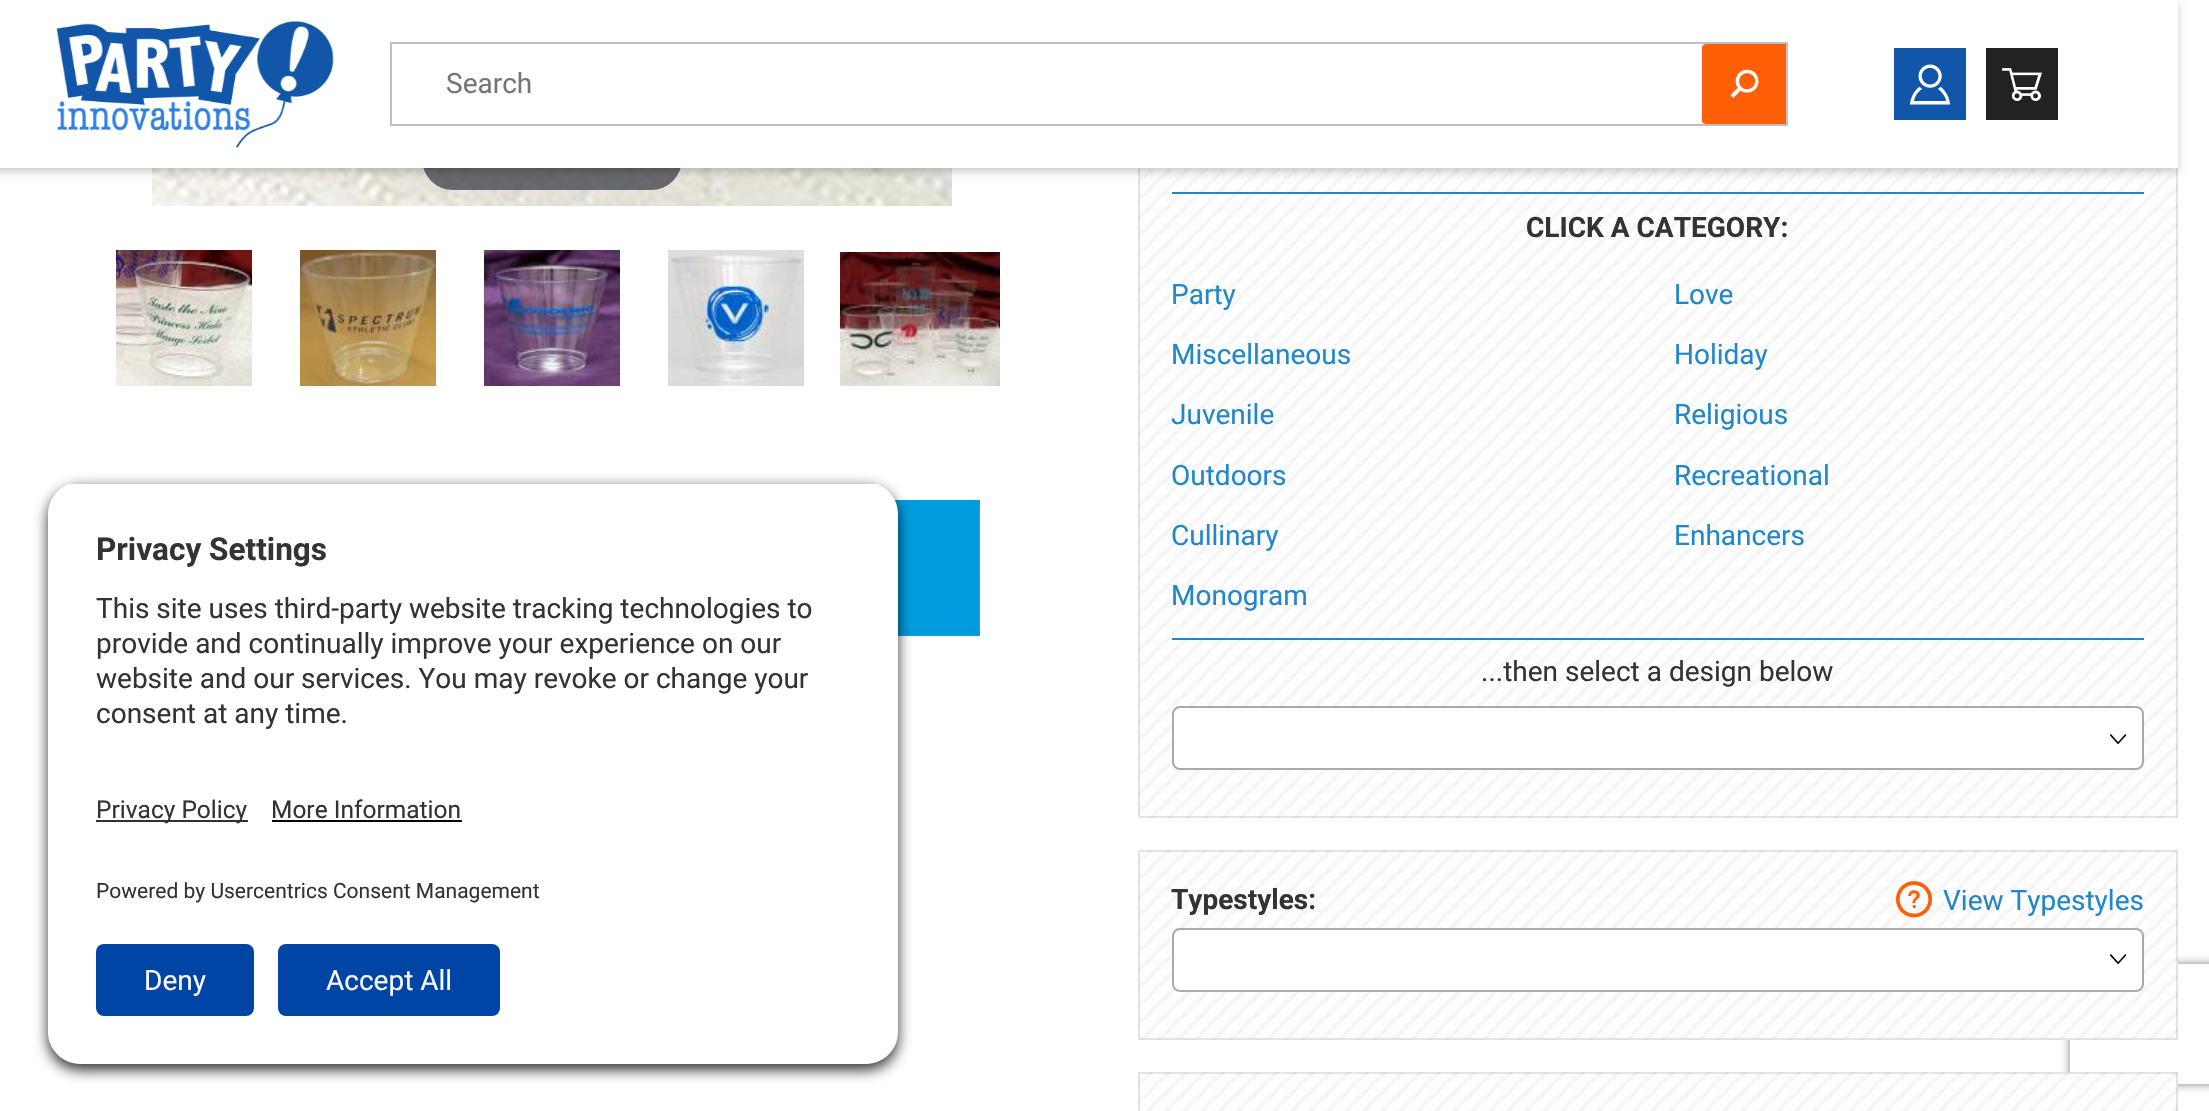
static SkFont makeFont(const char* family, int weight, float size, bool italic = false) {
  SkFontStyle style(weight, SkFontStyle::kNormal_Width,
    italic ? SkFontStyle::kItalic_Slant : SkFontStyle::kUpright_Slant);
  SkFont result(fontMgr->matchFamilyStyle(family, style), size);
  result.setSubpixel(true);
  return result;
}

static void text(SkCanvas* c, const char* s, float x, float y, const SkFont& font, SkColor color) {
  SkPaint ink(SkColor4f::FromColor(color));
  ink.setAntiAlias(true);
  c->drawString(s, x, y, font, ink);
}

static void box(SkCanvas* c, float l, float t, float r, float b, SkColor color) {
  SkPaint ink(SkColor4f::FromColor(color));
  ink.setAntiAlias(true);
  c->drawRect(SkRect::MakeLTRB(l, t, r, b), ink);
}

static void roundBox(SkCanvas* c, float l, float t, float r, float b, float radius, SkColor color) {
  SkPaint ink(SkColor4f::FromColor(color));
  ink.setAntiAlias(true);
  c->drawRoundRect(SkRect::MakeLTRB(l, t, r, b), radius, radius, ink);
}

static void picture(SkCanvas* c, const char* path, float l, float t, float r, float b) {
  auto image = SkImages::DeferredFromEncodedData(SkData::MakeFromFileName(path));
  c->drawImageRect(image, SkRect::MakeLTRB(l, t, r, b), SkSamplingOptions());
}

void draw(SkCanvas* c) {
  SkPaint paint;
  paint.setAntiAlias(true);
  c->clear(0xffffffff);
  picture(c, "img_05.png", 152, 168, 952, 206);
  roundBox(c, 422, 128, 682, 190, 31, 0xb331333d);
  picture(c, "img_12.png", 1138, 168, 2178, 818);
  paint.setStyle(SkPaint::kStroke_Style);
  paint.setStrokeWidth(2);
  paint.setColor(0x1a000000);
  c->drawRect(SkRect::MakeLTRB(1139, 117, 2177, 817), paint);
  paint.setStyle(SkPaint::kFill_Style);
  paint.setColor(0x33000000);
  paint.setMaskFilter(SkMaskFilter::MakeBlur(kNormal_SkBlurStyle, 4));
  c->drawRect(SkRect::MakeLTRB(-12, 4, 2178, 172), paint);
  paint.setMaskFilter(nullptr);
  box(c, 0, 0, 2178, 168, 0xffffffff);
  picture(c, "img_01.png", 56, 21, 334, 148);
  paint.setStyle(SkPaint::kStroke_Style);
  paint.setColor(0xffc0c0c0);
  c->drawRect(SkRect::MakeLTRB(391, 43, 1787, 125), paint);
  SkFont face1 = makeFont("Roboto", 400, 28);
  text(c, "Search", 446, 93, face1, 0xff757575);
  paint.setStyle(SkPaint::kFill_Style);
  paint.setColor(0xffff5f06);
  c->drawPath(SkPathBuilder().moveTo(1786, 44).lineTo(1706, 44).cubicTo(1704, 44, 1702, 46, 1702, 47).lineTo(1702, 121).cubicTo(1702, 122, 1704, 124, 1706, 124).lineTo(1786, 124).close().detach(), paint);
  picture(c, "img_02.png", 1730, 69, 1759, 98);
  box(c, 1894, 48, 1966, 120, 0xff1156a9);
  picture(c, "img_03.png", 1910, 64, 1950, 105);
  box(c, 1986, 48, 2058, 120, 0xff222222);
  picture(c, "img_04.png", 2002, 68, 2042, 101);
  picture(c, "img_11.png", 894, 500, 980, 636);
  paint.setColor(0xcc000000);
  paint.setMaskFilter(SkMaskFilter::MakeBlur(kNormal_SkBlurStyle, 7));
  c->drawRoundRect(SkRect::MakeLTRB(48, 488, 898, 1070), 32, 32, paint);
  paint.setMaskFilter(nullptr);
  c->save();
  c->clipPath(SkPathBuilder().moveTo(80, 482).lineTo(866, 482).cubicTo(883.5f, 482, 898, 496.5f, 898, 514).lineTo(898, 740).lineTo(48, 740).lineTo(48, 514).cubicTo(48, 496.5f, 62.5f, 482, 80, 482).close().detach(), true);
  box(c, 48, 484, 898, 740, 0xffffffff);
  c->restore();
  SkFont face2 = makeFont("Roboto", 700, 31.5f);
  text(c, "Privacy Settings", 96, 560, face2, 0xff333333);
  text(c, "This site uses third-party website tracking technologies to", 96, 618, face1, 0xff333333);
  text(c, "provide and continually improve your experience on our", 96, 653, face1, 0xff333333);
  text(c, "website and our services. You may revoke or change your", 96, 688, face1, 0xff333333);
  text(c, "consent at any time.", 96, 723, face1, 0xff333333);
  paint.setColor(0xffffffff);
  c->drawPath(SkPathBuilder().moveTo(48, 740).lineTo(898, 740).lineTo(898, 1032).cubicTo(898, 1049.5f, 883.5f, 1064, 866, 1064).lineTo(80, 1064).cubicTo(62.5f, 1064, 48, 1049.5f, 48, 1032).close().detach(), paint);
  box(c, 96, 820, 248, 822, 0xff303030);
  SkFont face3 = makeFont("Roboto", 400, 24.5f);
  text(c, "Privacy Policy", 96, 818, face3, 0xff333333);
  text(c, "More Information", 271, 818, face3, 0xff333333);
  box(c, 272, 820, 462, 822, 0xff000000);
  SkFont face4 = makeFont("Roboto", 400, 21);
  text(c, "Powered by Usercentrics Consent Management", 96, 898, face4, 0xff333333);
  roundBox(c, 96, 944, 254, 1016, 8, 0xff0045a5);
  text(c, "Deny", 144, 990, face1, 0xfffafafa);
  roundBox(c, 278, 944, 500, 1016, 8, 0xff0045a5);
  text(c, "Accept All", 326, 990, face1, 0xfffafafa);
  picture(c, "img_06.png", 116, 250, 252, 386);
  picture(c, "img_07.png", 300, 250, 436, 386);
  picture(c, "img_08.png", 484, 250, 620, 386);
  picture(c, "img_09.png", 668, 250, 804, 386);
  picture(c, "img_10.png", 840, 252, 1000, 386);
  box(c, 1172, 192, 2144, 194, 0xff2186ca);
  SkFont face5 = makeFont("Roboto", 700, 28);
  text(c, "CLICK A CATEGORY:", 1526, 237, face5, 0xff333333);
  text(c, "Party", 1171, 304, face1, 0xff2186ca);
  text(c, "Love", 1674, 304, face1, 0xff2186ca);
  text(c, "Miscellaneous", 1171, 364, face1, 0xff2186ca);
  text(c, "Holiday", 1674, 364, face1, 0xff2186ca);
  text(c, "Juvenile", 1171, 424, face1, 0xff2186ca);
  text(c, "Religious", 1674, 424, face1, 0xff2186ca);
  text(c, "Outdoors", 1171, 485, face1, 0xff2186ca);
  text(c, "Recreational", 1674, 485, face1, 0xff2186ca);
  text(c, "Cullinary", 1171, 545, face1, 0xff2186ca);
  text(c, "Enhancers", 1674, 545, face1, 0xff2186ca);
  text(c, "Monogram", 1171, 605, face1, 0xff2186ca);
  box(c, 1172, 638, 2144, 640, 0xff2186ca);
  text(c, "...then select a design below", 1481, 681, face1, 0xff333333);
  c->drawRoundRect(SkRect::MakeLTRB(1173, 707, 2143, 769), 7, 7, paint);
  paint.setStyle(SkPaint::kStroke_Style);
  paint.setColor(0xffaaaaaa);
  c->drawRoundRect(SkRect::MakeLTRB(1173, 707, 2143, 769), 7, 7, paint);
  picture(c, "img_13.png", 2110, 734, 2126, 744);
  c->save();
  c->clipPath(SkPathBuilder(SkPathFillType::kEvenOdd).moveTo(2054, 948).lineTo(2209, 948).lineTo(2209, 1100).lineTo(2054, 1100).close().moveTo(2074, 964).lineTo(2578, 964).cubicTo(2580, 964, 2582, 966, 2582, 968).lineTo(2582, 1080).cubicTo(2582, 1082, 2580, 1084, 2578, 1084).lineTo(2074, 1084).cubicTo(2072, 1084, 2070, 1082, 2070, 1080).lineTo(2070, 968).cubicTo(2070, 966, 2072, 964, 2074, 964).close().detach(), true);
  paint.setStyle(SkPaint::kFill_Style);
  paint.setColor(0xff808080);
  paint.setMaskFilter(SkMaskFilter::MakeBlur(kNormal_SkBlurStyle, 5));
  c->drawRoundRect(SkRect::MakeLTRB(2070, 964, 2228, 1084), 4, 4, paint);
  paint.setMaskFilter(nullptr);
  c->restore();
  picture(c, "img_14.png", 1138, 850, 2178, 1040);
  paint.setStyle(SkPaint::kStroke_Style);
  paint.setColor(0x1a000000);
  c->drawRect(SkRect::MakeLTRB(1139, 851, 2177, 1039), paint);
  text(c, "Typestyles:", 1171, 909, face5, 0xff333333);
  SkFont face6 = makeFont("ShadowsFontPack", 400, 36);
  text(c, "#", 1896, 915, face6, 0xffff5f06);
  text(c, "View Typestyles", 1943, 910, face1, 0xff2186ca);
  paint.setStyle(SkPaint::kFill_Style);
  paint.setColor(0xffffffff);
  c->drawRoundRect(SkRect::MakeLTRB(1173, 929, 2143, 991), 7, 7, paint);
  paint.setStyle(SkPaint::kStroke_Style);
  paint.setColor(0xffaaaaaa);
  c->drawRoundRect(SkRect::MakeLTRB(1173, 929, 2143, 991), 7, 7, paint);
  picture(c, "img_13.png", 2110, 954, 2126, 964);
  picture(c, "img_15.png", 1138, 1072, 2178, 1111);
  paint.setColor(0x1a000000);
  c->drawRect(SkRect::MakeLTRB(1139, 1073, 2177, 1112), paint);
}
